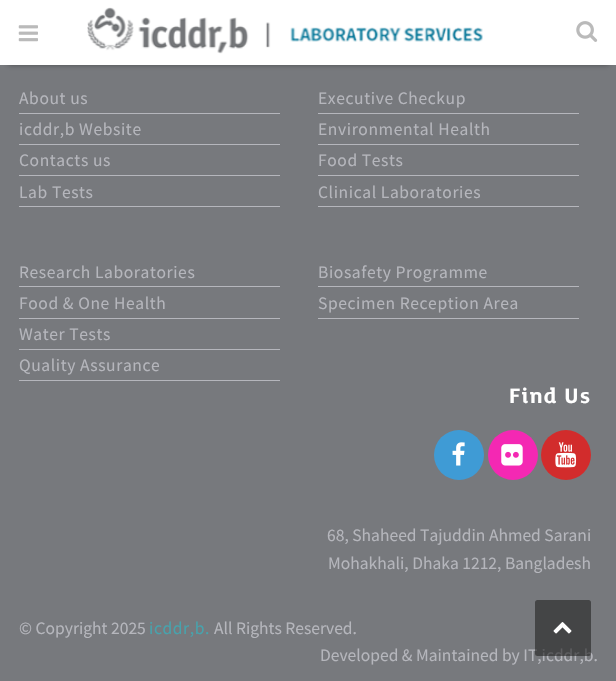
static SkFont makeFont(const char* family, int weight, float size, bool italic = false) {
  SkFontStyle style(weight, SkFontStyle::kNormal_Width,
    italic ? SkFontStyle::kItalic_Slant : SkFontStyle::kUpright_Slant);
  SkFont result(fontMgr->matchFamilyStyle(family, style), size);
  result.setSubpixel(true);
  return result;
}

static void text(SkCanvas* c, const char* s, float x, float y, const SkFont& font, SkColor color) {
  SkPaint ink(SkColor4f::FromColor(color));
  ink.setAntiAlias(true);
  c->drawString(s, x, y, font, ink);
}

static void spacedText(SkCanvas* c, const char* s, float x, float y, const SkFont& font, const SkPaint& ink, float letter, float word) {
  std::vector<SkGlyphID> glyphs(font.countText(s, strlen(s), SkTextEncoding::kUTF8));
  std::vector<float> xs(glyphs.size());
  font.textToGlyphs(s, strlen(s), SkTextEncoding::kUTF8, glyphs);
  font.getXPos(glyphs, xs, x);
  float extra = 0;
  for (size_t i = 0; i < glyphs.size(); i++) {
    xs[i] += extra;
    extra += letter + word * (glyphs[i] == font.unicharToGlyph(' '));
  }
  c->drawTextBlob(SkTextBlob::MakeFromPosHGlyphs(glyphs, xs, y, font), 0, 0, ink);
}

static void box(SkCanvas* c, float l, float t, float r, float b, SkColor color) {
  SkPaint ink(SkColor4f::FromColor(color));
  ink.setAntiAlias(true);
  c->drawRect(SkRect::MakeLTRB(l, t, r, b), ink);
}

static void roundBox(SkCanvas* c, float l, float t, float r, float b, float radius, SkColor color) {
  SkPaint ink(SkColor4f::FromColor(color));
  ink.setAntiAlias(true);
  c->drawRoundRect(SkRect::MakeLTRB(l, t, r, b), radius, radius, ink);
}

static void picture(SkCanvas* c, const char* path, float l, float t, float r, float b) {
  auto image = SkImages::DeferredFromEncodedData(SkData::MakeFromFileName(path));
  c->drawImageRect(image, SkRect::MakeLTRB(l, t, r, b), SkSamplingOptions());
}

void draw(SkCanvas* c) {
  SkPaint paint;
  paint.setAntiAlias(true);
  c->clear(0xff77797d);
  paint.setColor(0x80000000);
  paint.setMaskFilter(SkMaskFilter::MakeBlur(kNormal_SkBlurStyle, 3));
  c->drawRect(SkRect::MakeLTRB(8, 14, 609, 64), paint);
  paint.setMaskFilter(nullptr);
  box(c, 0, 0, 616, 65, 0xffffffff);
  picture(c, "img_01.png", 18, 25, 38, 42);
  picture(c, "img_02.png", 87, 7, 483, 54);
  picture(c, "img_03.png", 576, 21, 598, 42);
  box(c, 19, 113, 280, 114, 0xffb5b6bc);
  SkFont face1 = makeFont("Source Sans Pro", 400, 17.5f);
  paint.setColor(0xffb5b6bc);
  spacedText(c, "About us", 19, 104, face1, paint, 0.6f, 0);
  box(c, 19, 144, 280, 145, 0xffb5b6bc);
  spacedText(c, "icddr,b Website", 19, 135, face1, paint, 0.6f, 0);
  box(c, 19, 175, 280, 176, 0xffb5b6bc);
  spacedText(c, "Contacts us", 19, 166, face1, paint, 0.6f, 0);
  box(c, 19, 206, 280, 207, 0xffb5b6bc);
  spacedText(c, "Lab Tests", 19, 198, face1, paint, 0.6f, 0);
  box(c, 318, 113, 579, 114, 0xffb5b6bc);
  spacedText(c, "Executive Checkup", 318, 104, face1, paint, 0.6f, 0);
  box(c, 318, 144, 579, 145, 0xffb5b6bc);
  spacedText(c, "Environmental Health", 318, 135, face1, paint, 0.6f, 0);
  box(c, 318, 175, 579, 176, 0xffb5b6bc);
  spacedText(c, "Food Tests", 318, 166, face1, paint, 0.6f, 0);
  box(c, 318, 206, 579, 207, 0xffb5b6bc);
  spacedText(c, "Clinical Laboratories", 318, 198, face1, paint, 0.6f, 0);
  box(c, 19, 286, 280, 287, 0xffb5b6bc);
  spacedText(c, "Research Laboratories", 19, 278, face1, paint, 0.6f, 0);
  box(c, 19, 318, 280, 319, 0xffb5b6bc);
  spacedText(c, "Food & One Health", 19, 309, face1, paint, 0.6f, 0);
  box(c, 19, 349, 280, 350, 0xffb5b6bc);
  spacedText(c, "Water Tests", 19, 340, face1, paint, 0.6f, 0);
  box(c, 19, 380, 280, 381, 0xffb5b6bc);
  spacedText(c, "Quality Assurance", 19, 371, face1, paint, 0.6f, 0);
  box(c, 318, 286, 579, 287, 0xffb5b6bc);
  spacedText(c, "Biosafety Programme", 318, 278, face1, paint, 0.6f, 0);
  box(c, 318, 318, 579, 319, 0xffb5b6bc);
  spacedText(c, "Specimen Reception Area", 318, 309, face1, paint, 0.6f, 0);
  SkFont face2 = makeFont("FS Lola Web", 700, 22.5f);
  paint.setColor(0xffffffff);
  spacedText(c, "Find Us", 509, 403, face2, paint, 1.25f, 0);
  paint.setColor(0xff3f9bd5);
  c->drawCircle(459, 455, 25, paint);
  picture(c, "img_04.png", 452, 442, 465, 466);
  paint.setColor(0xfff428b3);
  c->drawCircle(513, 455, 25, paint);
  picture(c, "img_05.png", 501, 444, 523, 466);
  paint.setColor(0xffd22c2c);
  c->drawCircle(566, 455, 25, paint);
  picture(c, "img_06.png", 555, 442, 577, 468);
  text(c, "68, Shaheed Tajuddin Ahmed Sarani", 327, 541, face1, 0xffb5b6bc);
  text(c, "Mohakhali, Dhaka 1212, Bangladesh", 328, 569, face1, 0xffb5b6bc);
  text(c, "© Copyright 2025", 19, 634, face1, 0xffb5b6bc);
  paint.setColor(0xff47a3ad);
  spacedText(c, "icddr,b.", 149, 634, face1, paint, 0.6f, 0);
  text(c, "All Rights Reserved.", 214, 634, face1, 0xffb5b6bc);
  text(c, "Developed & Maintained by IT,icddr,b.", 320, 661, face1, 0xffb5b6bc);
  roundBox(c, 535, 600, 591, 656, 2.5f, 0x99212121);
  picture(c, "img_07.png", 553, 622, 572, 634);
}
